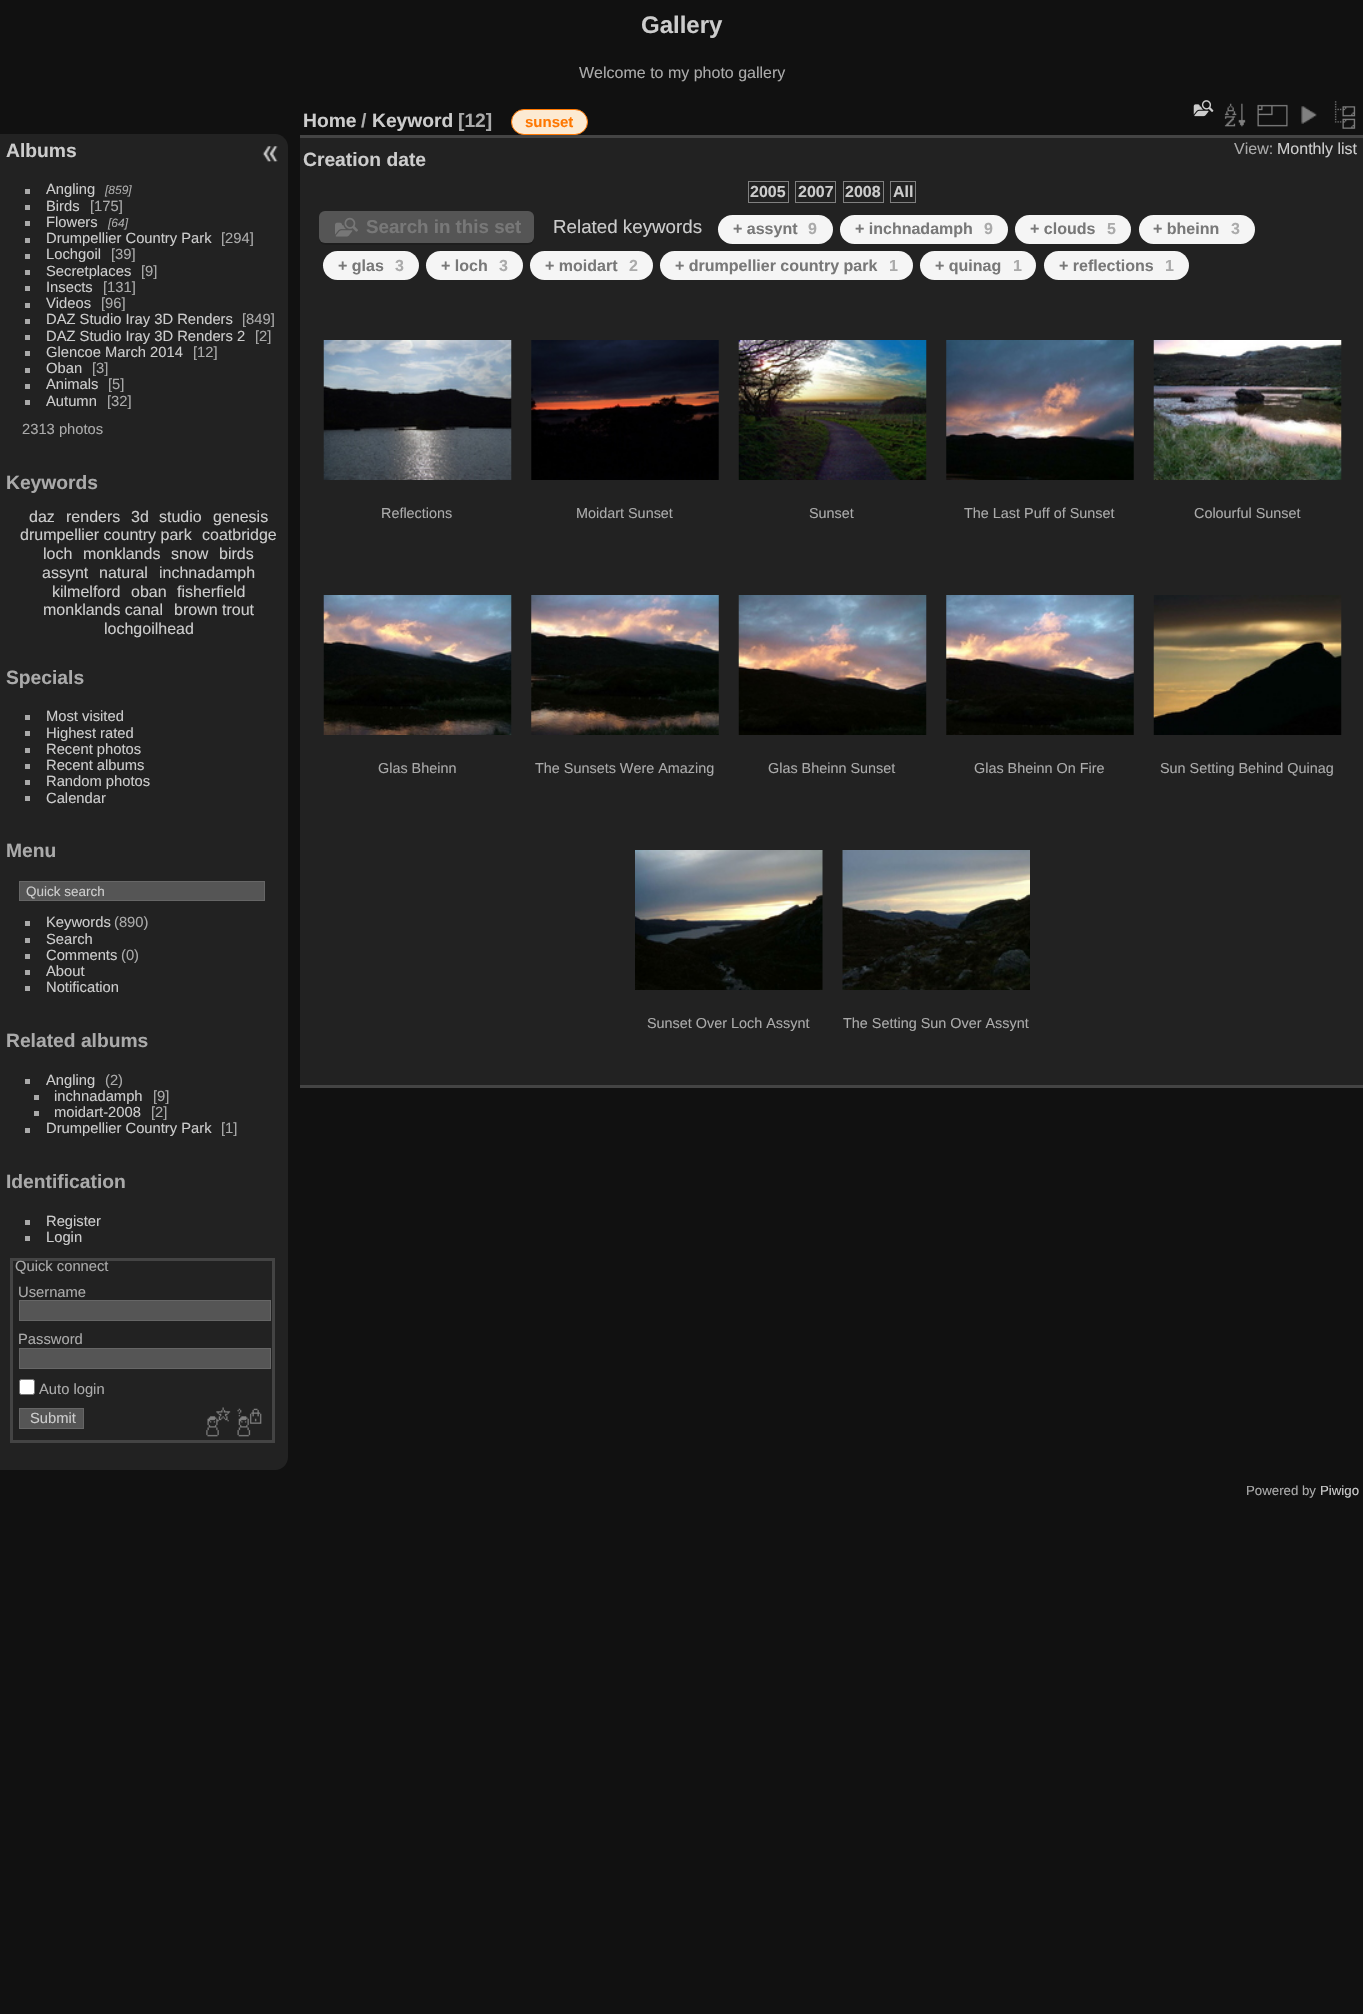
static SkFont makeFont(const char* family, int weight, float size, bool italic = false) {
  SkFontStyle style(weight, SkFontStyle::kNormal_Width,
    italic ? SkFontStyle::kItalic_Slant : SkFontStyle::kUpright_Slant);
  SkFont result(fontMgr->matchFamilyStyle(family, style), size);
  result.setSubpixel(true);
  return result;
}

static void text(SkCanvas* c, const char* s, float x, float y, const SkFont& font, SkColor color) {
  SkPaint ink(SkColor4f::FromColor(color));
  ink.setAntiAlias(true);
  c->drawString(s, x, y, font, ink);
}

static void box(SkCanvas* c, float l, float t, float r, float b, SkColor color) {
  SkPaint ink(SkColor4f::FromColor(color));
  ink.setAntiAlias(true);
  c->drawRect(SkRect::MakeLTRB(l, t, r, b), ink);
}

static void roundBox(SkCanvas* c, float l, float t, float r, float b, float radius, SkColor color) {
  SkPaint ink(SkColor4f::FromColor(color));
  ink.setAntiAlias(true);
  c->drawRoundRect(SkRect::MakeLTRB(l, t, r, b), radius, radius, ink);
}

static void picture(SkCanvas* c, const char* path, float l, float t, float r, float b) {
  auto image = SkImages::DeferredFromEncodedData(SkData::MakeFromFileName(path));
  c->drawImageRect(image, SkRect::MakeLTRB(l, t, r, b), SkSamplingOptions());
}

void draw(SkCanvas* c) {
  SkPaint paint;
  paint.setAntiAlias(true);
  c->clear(0xff111111);
  SkFont face1 = makeFont("Liberation Sans", 700, 24);
  text(c, "Gallery", 641, 33, face1, 0xffcccccc);
  SkFont face2 = makeFont("Liberation Sans", 400, 16);
  text(c, "Welcome to my photo gallery", 579, 78, face2, 0xffaaaaaa);
  paint.setColor(0xff222222);
  c->drawPath(SkPathBuilder().moveTo(0, 134).lineTo(275, 134).cubicTo(282, 134, 288, 140, 288, 147).lineTo(288, 1457).cubicTo(288, 1464, 282, 1470, 275, 1470).lineTo(0, 1470).close().detach(), paint);
  SkFont face3 = makeFont("Liberation Sans", 700, 19.25f);
  text(c, "Albums", 6, 157, face3, 0xffcccccc);
  box(c, 25, 189, 30, 194, 0xffaaaaaa);
  SkFont face4 = makeFont("Liberation Sans", 400, 14.75f);
  text(c, "Angling", 46, 194, face4, 0xffcccccc);
  SkFont face5 = makeFont("Liberation Sans", 400, 12, true);
  text(c, "[859]", 105, 194, face5, 0xffaaaaaa);
  box(c, 25, 205, 30, 210, 0xffaaaaaa);
  text(c, "Birds", 46, 211, face4, 0xffcccccc);
  text(c, "[175]", 90, 211, face4, 0xffaaaaaa);
  box(c, 25, 221, 30, 226, 0xffaaaaaa);
  text(c, "Flowers", 46, 227, face4, 0xffcccccc);
  text(c, "[64]", 108, 227, face5, 0xffaaaaaa);
  box(c, 25, 238, 30, 243, 0xffaaaaaa);
  text(c, "Drumpellier Country Park", 46, 243, face4, 0xffcccccc);
  text(c, "[294]", 221, 243, face4, 0xffaaaaaa);
  box(c, 25, 254, 30, 259, 0xffaaaaaa);
  text(c, "Lochgoil", 46, 259, face4, 0xffcccccc);
  text(c, "[39]", 111, 259, face4, 0xffaaaaaa);
  box(c, 25, 270, 30, 275, 0xffaaaaaa);
  text(c, "Secretplaces", 46, 276, face4, 0xffcccccc);
  text(c, "[9]", 141, 276, face4, 0xffaaaaaa);
  box(c, 25, 286, 30, 291, 0xffaaaaaa);
  text(c, "Insects", 46, 292, face4, 0xffcccccc);
  text(c, "[131]", 103, 292, face4, 0xffaaaaaa);
  box(c, 25, 303, 30, 308, 0xffaaaaaa);
  text(c, "Videos", 46, 308, face4, 0xffcccccc);
  text(c, "[96]", 101, 308, face4, 0xffaaaaaa);
  box(c, 25, 319, 30, 324, 0xffaaaaaa);
  text(c, "DAZ Studio Iray 3D Renders", 46, 324, face4, 0xffcccccc);
  text(c, "[849]", 242, 324, face4, 0xffaaaaaa);
  box(c, 25, 335, 30, 340, 0xffaaaaaa);
  text(c, "DAZ Studio Iray 3D Renders 2", 46, 341, face4, 0xffcccccc);
  text(c, "[2]", 255, 341, face4, 0xffaaaaaa);
  box(c, 25, 351, 30, 356, 0xffaaaaaa);
  text(c, "Glencoe March 2014", 46, 357, face4, 0xffcccccc);
  text(c, "[12]", 193, 357, face4, 0xffaaaaaa);
  box(c, 25, 368, 30, 373, 0xffaaaaaa);
  text(c, "Oban", 46, 373, face4, 0xffcccccc);
  text(c, "[3]", 92, 373, face4, 0xffaaaaaa);
  box(c, 25, 384, 30, 389, 0xffaaaaaa);
  text(c, "Animals", 46, 389, face4, 0xffcccccc);
  text(c, "[5]", 108, 389, face4, 0xffaaaaaa);
  box(c, 25, 400, 30, 405, 0xffaaaaaa);
  text(c, "Autumn", 46, 406, face4, 0xffcccccc);
  text(c, "[32]", 107, 406, face4, 0xffaaaaaa);
  text(c, "2313 photos", 22, 434, face4, 0xffaaaaaa);
  text(c, "Keywords", 6, 489, face3, 0xffaaaaaa);
  text(c, "daz", 29, 522, face2, 0xffcccccc);
  text(c, "renders", 66, 522, face2, 0xffcccccc);
  text(c, "3d", 131, 522, face2, 0xffcccccc);
  text(c, "studio", 159, 522, face2, 0xffcccccc);
  text(c, "genesis", 213, 522, face2, 0xffcccccc);
  text(c, "drumpellier country park", 20, 540, face2, 0xffcccccc);
  text(c, "coatbridge", 202, 540, face2, 0xffcccccc);
  text(c, "loch", 43, 559, face2, 0xffcccccc);
  text(c, "monklands", 83, 559, face2, 0xffcccccc);
  text(c, "snow", 171, 559, face2, 0xffcccccc);
  text(c, "birds", 219, 559, face2, 0xffcccccc);
  text(c, "assynt", 42, 578, face2, 0xffcccccc);
  text(c, "natural", 99, 578, face2, 0xffcccccc);
  text(c, "inchnadamph", 159, 578, face2, 0xffcccccc);
  text(c, "kilmelford", 52, 597, face2, 0xffcccccc);
  text(c, "oban", 131, 597, face2, 0xffcccccc);
  text(c, "fisherfield", 177, 597, face2, 0xffcccccc);
  text(c, "monklands canal", 43, 615, face2, 0xffcccccc);
  text(c, "brown trout", 174, 615, face2, 0xffcccccc);
  text(c, "lochgoilhead", 104, 634, face2, 0xffcccccc);
  text(c, "Specials", 6, 684, face3, 0xffaaaaaa);
  box(c, 25, 715, 30, 720, 0xffaaaaaa);
  text(c, "Most visited", 46, 721, face4, 0xffcccccc);
  box(c, 25, 731, 30, 736, 0xffaaaaaa);
  text(c, "Highest rated", 46, 738, face4, 0xffcccccc);
  box(c, 25, 748, 30, 753, 0xffaaaaaa);
  text(c, "Recent photos", 46, 754, face4, 0xffcccccc);
  box(c, 25, 764, 30, 769, 0xffaaaaaa);
  text(c, "Recent albums", 46, 770, face4, 0xffcccccc);
  box(c, 25, 780, 30, 785, 0xffaaaaaa);
  text(c, "Random photos", 46, 786, face4, 0xffcccccc);
  box(c, 25, 796, 30, 801, 0xffaaaaaa);
  text(c, "Calendar", 46, 803, face4, 0xffcccccc);
  text(c, "Menu", 6, 857, face3, 0xffaaaaaa);
  paint.setColor(0xff555555);
  c->drawRect(SkRect::MakeLTRB(19.5f, 881.5f, 264.5f, 900.5f), paint);
  paint.setStyle(SkPaint::kStroke_Style);
  paint.setStrokeWidth(1);
  paint.setColor(0xff666666);
  c->drawRect(SkRect::MakeLTRB(19.5f, 881.5f, 264.5f, 900.5f), paint);
  SkFont face6 = makeFont("Liberation Sans", 400, 13.5f);
  text(c, "Quick search", 26, 896, face6, 0xffcccccc);
  box(c, 25, 921, 30, 926, 0xffaaaaaa);
  text(c, "Keywords", 46, 927, face4, 0xffcccccc);
  text(c, "(890)", 114, 927, face4, 0xffaaaaaa);
  box(c, 25, 938, 30, 943, 0xffaaaaaa);
  text(c, "Search", 46, 944, face4, 0xffcccccc);
  box(c, 25, 954, 30, 959, 0xffaaaaaa);
  text(c, "Comments", 46, 960, face4, 0xffcccccc);
  text(c, "(0)", 121, 960, face4, 0xffaaaaaa);
  box(c, 25, 970, 30, 975, 0xffaaaaaa);
  text(c, "About", 46, 976, face4, 0xffcccccc);
  box(c, 25, 986, 30, 991, 0xffaaaaaa);
  text(c, "Notification", 46, 992, face4, 0xffcccccc);
  text(c, "Related albums", 6, 1047, face3, 0xffaaaaaa);
  box(c, 25, 1079, 30, 1084, 0xffaaaaaa);
  text(c, "Angling", 46, 1085, face4, 0xffcccccc);
  text(c, "(2)", 105, 1085, face4, 0xffaaaaaa);
  box(c, 34, 1095, 39, 1100, 0xffaaaaaa);
  text(c, "inchnadamph", 54, 1101, face4, 0xffcccccc);
  text(c, "[9]", 153, 1101, face4, 0xffaaaaaa);
  box(c, 34, 1111, 39, 1116, 0xffaaaaaa);
  text(c, "moidart-2008", 54, 1117, face4, 0xffcccccc);
  text(c, "[2]", 151, 1117, face4, 0xffaaaaaa);
  box(c, 25, 1128, 30, 1133, 0xffaaaaaa);
  text(c, "Drumpellier Country Park", 46, 1133, face4, 0xffcccccc);
  text(c, "[1]", 221, 1133, face4, 0xffaaaaaa);
  text(c, "Identification", 6, 1188, face3, 0xffaaaaaa);
  box(c, 25, 1220, 30, 1225, 0xffaaaaaa);
  text(c, "Register", 46, 1226, face4, 0xffcccccc);
  box(c, 25, 1236, 30, 1241, 0xffaaaaaa);
  text(c, "Login", 46, 1242, face4, 0xffcccccc);
  paint.setStrokeWidth(3);
  paint.setColor(0xff444444);
  c->drawRect(SkRect::MakeLTRB(11.5f, 1259.5f, 273.5f, 1441.5f), paint);
  text(c, "Quick connect", 15, 1271, face4, 0xffaaaaaa);
  text(c, "Username", 18, 1297, face4, 0xffaaaaaa);
  paint.setStyle(SkPaint::kFill_Style);
  paint.setColor(0xff555555);
  c->drawRect(SkRect::MakeLTRB(19.5f, 1300.5f, 270.5f, 1320.5f), paint);
  paint.setStyle(SkPaint::kStroke_Style);
  paint.setStrokeWidth(1);
  paint.setColor(0xff666666);
  c->drawRect(SkRect::MakeLTRB(19.5f, 1300.5f, 270.5f, 1320.5f), paint);
  text(c, "Password", 18, 1344, face4, 0xffaaaaaa);
  paint.setStyle(SkPaint::kFill_Style);
  paint.setColor(0xff555555);
  c->drawRect(SkRect::MakeLTRB(19.5f, 1348.5f, 270.5f, 1368.5f), paint);
  paint.setStyle(SkPaint::kStroke_Style);
  paint.setColor(0xff666666);
  c->drawRect(SkRect::MakeLTRB(19.5f, 1348.5f, 270.5f, 1368.5f), paint);
  paint.setStyle(SkPaint::kFill_Style);
  paint.setColor(0xffffffff);
  c->drawRoundRect(SkRect::MakeLTRB(19.5f, 1379.5f, 34.5f, 1394.5f), 2, 2, paint);
  paint.setStyle(SkPaint::kStroke_Style);
  paint.setColor(0xff767676);
  c->drawRoundRect(SkRect::MakeLTRB(19.5f, 1379.5f, 34.5f, 1394.5f), 2, 2, paint);
  text(c, "Auto login", 39, 1394, face4, 0xffaaaaaa);
  paint.setStyle(SkPaint::kFill_Style);
  paint.setColor(0xff555555);
  c->drawRect(SkRect::MakeLTRB(19.5f, 1408.5f, 83.5f, 1428.5f), paint);
  paint.setStyle(SkPaint::kStroke_Style);
  paint.setColor(0xff666666);
  c->drawRect(SkRect::MakeLTRB(19.5f, 1408.5f, 83.5f, 1428.5f), paint);
  text(c, "Submit", 30, 1423, face4, 0xffcccccc);
  picture(c, "img_01.png", 206, 1407, 231, 1437);
  picture(c, "img_02.png", 237, 1408, 262, 1437);
  box(c, 300, 138, 1363, 1085, 0xff222222);
  box(c, 300, 1085, 1363, 1088, 0xff444444);
  text(c, "Home", 303, 127, face3, 0xffcccccc);
  text(c, "/", 361, 127, face3, 0xffaaaaaa);
  text(c, "Keyword", 372, 127, face3, 0xffcccccc);
  text(c, "[12]", 458, 127, face3, 0xffaaaaaa);
  paint.setStyle(SkPaint::kFill_Style);
  paint.setColor(0xfffcead2);
  c->drawRoundRect(SkRect::MakeLTRB(511.5f, 109.5f, 587.5f, 134.5f), 12.5f, 12.5f, paint);
  paint.setStyle(SkPaint::kStroke_Style);
  paint.setColor(0xffff7700);
  c->drawRoundRect(SkRect::MakeLTRB(511.5f, 109.5f, 587.5f, 134.5f), 12.5f, 12.5f, paint);
  SkFont face7 = makeFont("Liberation Sans", 700, 15);
  text(c, "sunset", 525, 127, face7, 0xffff7700);
  picture(c, "img_03.png", 1193, 100, 1214, 117);
  picture(c, "img_04.png", 1224, 103, 1246, 127);
  picture(c, "img_05.png", 1257, 104, 1288, 127);
  picture(c, "img_06.png", 1301, 106, 1317, 124);
  picture(c, "img_07.png", 1334, 101, 1356, 129);
  text(c, "View:", 1234, 154, face2, 0xffaaaaaa);
  text(c, "Monthly list", 1277, 154, face2, 0xffcccccc);
  box(c, 300, 135, 1363, 138, 0xff444444);
  text(c, "Creation date", 303, 166, face3, 0xffcccccc);
  paint.setColor(0xff808080);
  c->drawRect(SkRect::MakeLTRB(748.5f, 181.5f, 788.5f, 202.5f), paint);
  SkFont face8 = makeFont("Liberation Sans", 700, 16);
  text(c, "2005", 750, 197, face8, 0xffcccccc);
  c->drawRect(SkRect::MakeLTRB(795.5f, 181.5f, 835.5f, 202.5f), paint);
  text(c, "2007", 798, 197, face8, 0xffcccccc);
  c->drawRect(SkRect::MakeLTRB(843.5f, 181.5f, 883.5f, 202.5f), paint);
  text(c, "2008", 845, 197, face8, 0xffcccccc);
  c->drawRect(SkRect::MakeLTRB(890.5f, 181.5f, 915.5f, 202.5f), paint);
  text(c, "All", 893, 197, face8, 0xffcccccc);
  paint.setStyle(SkPaint::kFill_Style);
  paint.setColor(0xff1d1d1d);
  c->drawPath(SkPathBuilder().moveTo(319, 238).cubicTo(319, 242, 321, 245, 325, 245).lineTo(528, 245).cubicTo(535, 245, 534, 237, 534, 233).lineTo(534, 218).lineTo(534, 236).cubicTo(534, 240, 531, 242, 528, 242).lineTo(325, 242).cubicTo(322, 242, 320, 241, 319, 238).close().detach(), paint);
  roundBox(c, 319, 211, 534, 243, 6, 0xff555555);
  picture(c, "img_08.png", 335, 217, 358, 237);
  SkFont face9 = makeFont("Liberation Sans", 700, 18.75f);
  text(c, "Search in this set", 366, 233, face9, 0xff787878);
  SkFont face10 = makeFont("Liberation Sans", 400, 18.75f);
  text(c, "Related keywords", 553, 233, face10, 0xffcccccc);
  roundBox(c, 718, 215, 833, 244, 14.5f, 0xfff5f5f5);
  text(c, "+ assynt", 733, 234, face8, 0xff787878);
  text(c, "9", 808, 234, face8, 0xffaaaaaa);
  roundBox(c, 840, 215, 1008, 244, 14.5f, 0xfff5f5f5);
  text(c, "+ inchnadamph", 855, 234, face8, 0xff787878);
  text(c, "9", 984, 234, face8, 0xffaaaaaa);
  roundBox(c, 1015, 215, 1131, 244, 14.5f, 0xfff5f5f5);
  text(c, "+ clouds", 1030, 234, face8, 0xff787878);
  text(c, "5", 1107, 234, face8, 0xffaaaaaa);
  roundBox(c, 1139, 215, 1255, 244, 14.5f, 0xfff5f5f5);
  text(c, "+ bheinn", 1153, 234, face8, 0xff787878);
  text(c, "3", 1231, 234, face8, 0xffaaaaaa);
  roundBox(c, 323, 251, 419, 280, 14.5f, 0xfff5f5f5);
  text(c, "+ glas", 338, 271, face8, 0xff787878);
  text(c, "3", 395, 271, face8, 0xffaaaaaa);
  roundBox(c, 426, 251, 523, 280, 14.5f, 0xfff5f5f5);
  text(c, "+ loch", 441, 271, face8, 0xff787878);
  text(c, "3", 499, 271, face8, 0xffaaaaaa);
  roundBox(c, 530, 251, 653, 280, 14.5f, 0xfff5f5f5);
  text(c, "+ moidart", 545, 271, face8, 0xff787878);
  text(c, "2", 629, 271, face8, 0xffaaaaaa);
  roundBox(c, 660, 251, 913, 280, 14.5f, 0xfff5f5f5);
  text(c, "+ drumpellier country park", 675, 271, face8, 0xff787878);
  text(c, "1", 889, 271, face8, 0xffaaaaaa);
  roundBox(c, 920, 251, 1036, 280, 14.5f, 0xfff5f5f5);
  text(c, "+ quinag", 935, 271, face8, 0xff787878);
  text(c, "1", 1013, 271, face8, 0xffaaaaaa);
  roundBox(c, 1044, 251, 1189, 280, 14.5f, 0xfff5f5f5);
  text(c, "+ reflections", 1059, 271, face8, 0xff787878);
  text(c, "1", 1165, 271, face8, 0xffaaaaaa);
  picture(c, "img_09.png", 323, 340, 512, 480);
  SkFont face11 = makeFont("Liberation Sans", 400, 14.4f);
  text(c, "Reflections", 381, 518, face11, 0xffaaaaaa);
  picture(c, "img_10.png", 531, 340, 719, 480);
  text(c, "Moidart Sunset", 576, 518, face11, 0xffaaaaaa);
  picture(c, "img_11.png", 738, 340, 927, 480);
  text(c, "Sunset", 809, 518, face11, 0xffaaaaaa);
  picture(c, "img_12.png", 946, 340, 1134, 480);
  text(c, "The Last Puff of Sunset", 964, 518, face11, 0xffaaaaaa);
  picture(c, "img_13.png", 1153, 340, 1342, 480);
  text(c, "Colourful Sunset", 1194, 518, face11, 0xffaaaaaa);
  picture(c, "img_14.png", 323, 595, 512, 735);
  text(c, "Glas Bheinn", 378, 773, face11, 0xffaaaaaa);
  picture(c, "img_15.png", 531, 595, 719, 735);
  text(c, "The Sunsets Were Amazing", 535, 773, face11, 0xffaaaaaa);
  picture(c, "img_16.png", 738, 595, 927, 735);
  text(c, "Glas Bheinn Sunset", 768, 773, face11, 0xffaaaaaa);
  picture(c, "img_17.png", 946, 595, 1134, 735);
  text(c, "Glas Bheinn On Fire", 974, 773, face11, 0xffaaaaaa);
  picture(c, "img_18.png", 1153, 595, 1342, 735);
  text(c, "Sun Setting Behind Quinag", 1160, 773, face11, 0xffaaaaaa);
  picture(c, "img_19.png", 635, 850, 823, 990);
  text(c, "Sunset Over Loch Assynt", 647, 1028, face11, 0xffaaaaaa);
  picture(c, "img_20.png", 842, 850, 1030, 990);
  text(c, "The Setting Sun Over Assynt", 843, 1028, face11, 0xffaaaaaa);
  picture(c, "img_21.png", 262, 146, 278, 162);
  SkFont face12 = makeFont("Liberation Sans", 400, 13.25f);
  text(c, "Powered by", 1246, 1495, face12, 0xffaaaaaa);
  text(c, "Piwigo", 1320, 1495, face12, 0xffcccccc);
}
